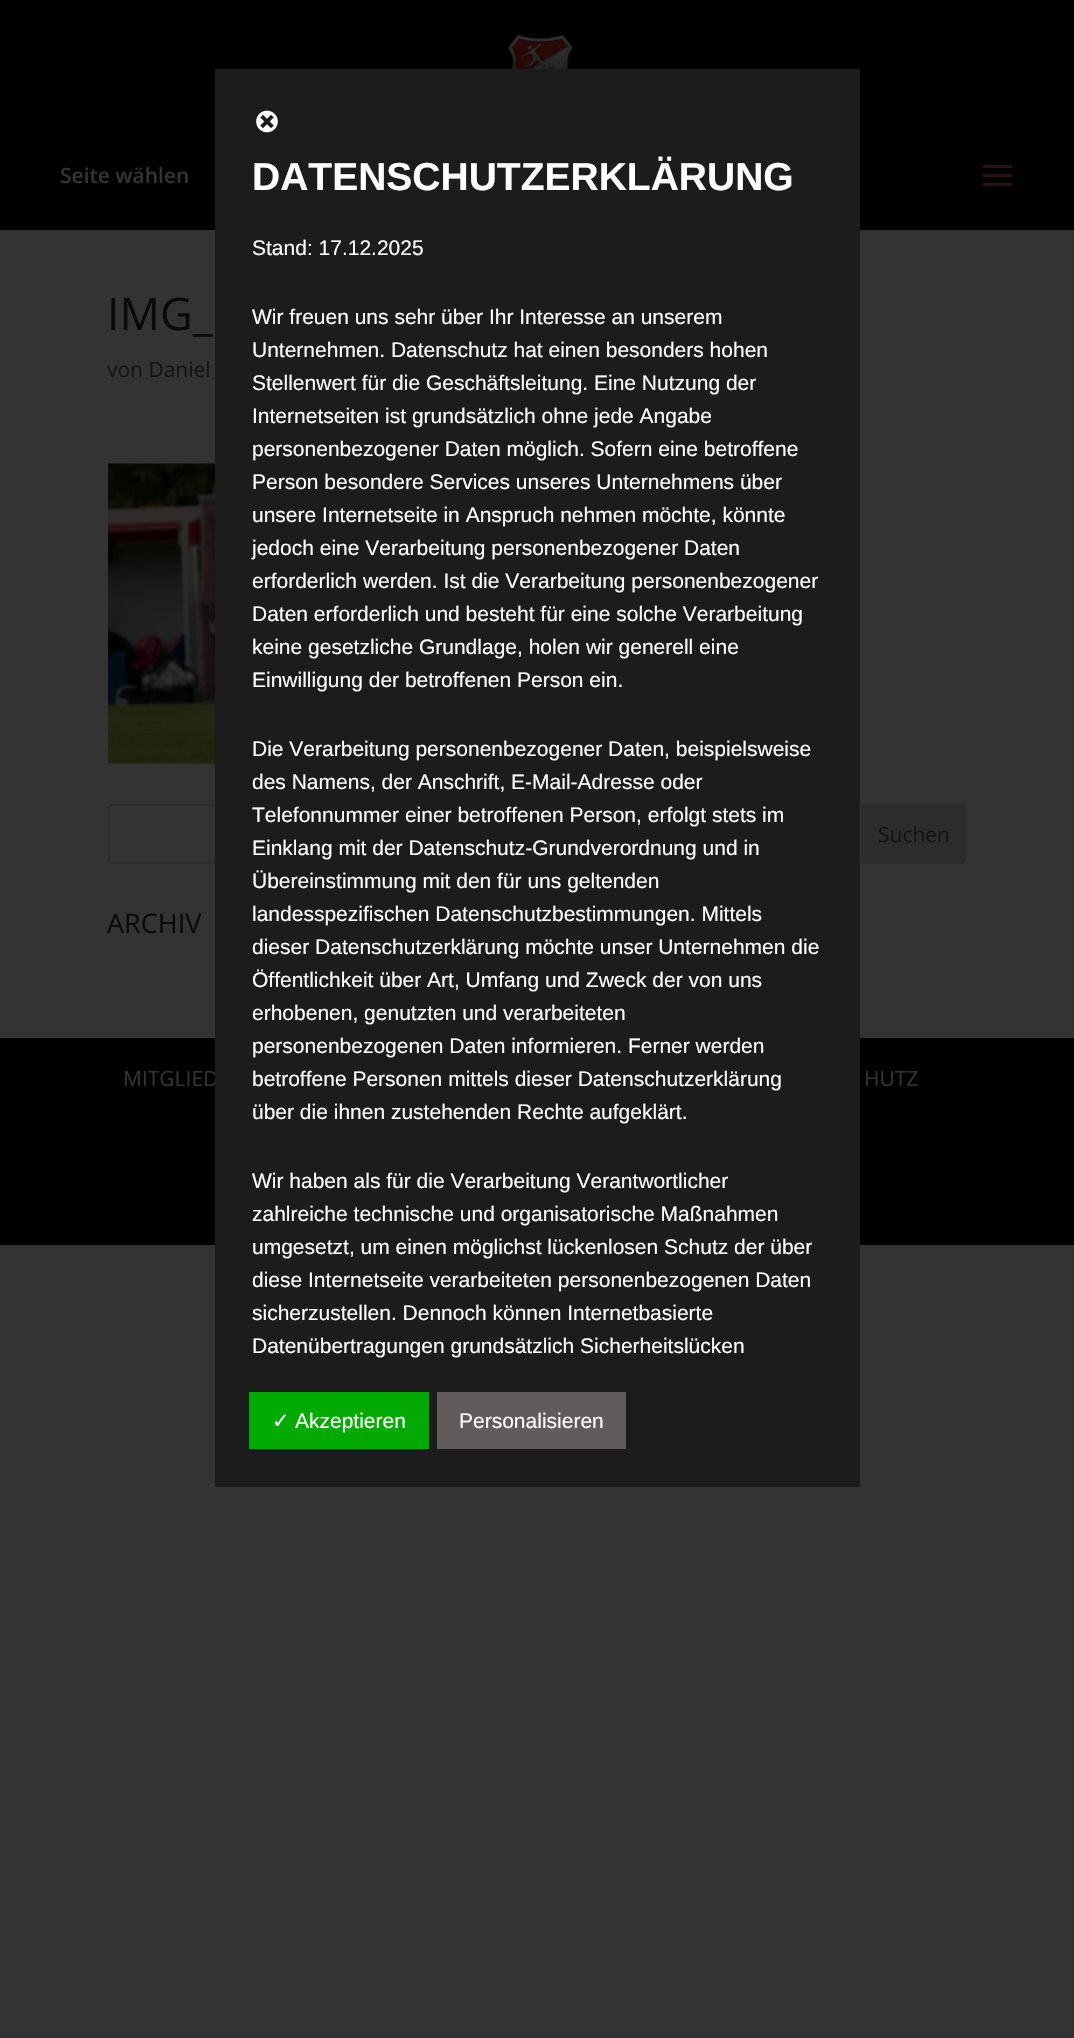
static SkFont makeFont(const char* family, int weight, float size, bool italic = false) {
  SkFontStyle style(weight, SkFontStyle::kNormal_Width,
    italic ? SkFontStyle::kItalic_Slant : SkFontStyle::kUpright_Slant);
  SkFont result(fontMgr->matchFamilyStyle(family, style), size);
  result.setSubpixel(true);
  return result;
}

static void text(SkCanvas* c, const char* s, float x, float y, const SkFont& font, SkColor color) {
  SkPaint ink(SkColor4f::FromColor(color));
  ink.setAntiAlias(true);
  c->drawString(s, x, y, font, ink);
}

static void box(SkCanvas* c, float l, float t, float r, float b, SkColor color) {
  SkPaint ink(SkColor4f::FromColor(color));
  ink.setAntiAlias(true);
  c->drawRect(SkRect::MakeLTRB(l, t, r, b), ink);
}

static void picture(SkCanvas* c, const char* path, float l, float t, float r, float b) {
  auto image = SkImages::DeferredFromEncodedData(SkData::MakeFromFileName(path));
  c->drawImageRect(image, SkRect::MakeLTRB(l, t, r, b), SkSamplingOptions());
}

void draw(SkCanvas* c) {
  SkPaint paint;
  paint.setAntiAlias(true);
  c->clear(0xff333333);
  box(c, 0, 230, 1074, 231, 0xff2e2e2e);
  box(c, 0, 0, 1074, 230, 0xff000000);
  paint.setStyle(SkPaint::kStroke_Style);
  paint.setStrokeWidth(2);
  paint.setColor(0xff2c2c2c);
  c->drawRoundRect(SkRect::MakeLTRB(109, 805, 965, 863), 4, 4, paint);
  box(c, 0, 1038, 1074, 1245, 0xff000000);
  SkFont face1 = makeFont("Open Sans", 400, 21);
  text(c, "MITGLIED", 123, 1086, face1, 0xff333333);
  box(c, 215, 69, 860, 1487, 0xff1d1c1c);
  picture(c, "img_01.png", 256, 110, 278, 133);
  SkFont face2 = makeFont("Liberation Sans", 700, 39);
  text(c, "DATENSCHUTZERKLÄRUNG", 252, 190, face2, 0xffffffff);
  SkFont face3 = makeFont("Liberation Sans", 400, 21);
  text(c, "Stand: 17.12.2025", 252, 255, face3, 0xffffffff);
  text(c, "Wir freuen uns sehr über Ihr Interesse an unserem", 252, 324, face3, 0xffffffff);
  text(c, "Unternehmen. Datenschutz hat einen besonders hohen", 252, 357, face3, 0xffffffff);
  text(c, "Stellenwert für die Geschäftsleitung. Eine Nutzung der", 252, 390, face3, 0xffffffff);
  text(c, "Internetseiten ist grundsätzlich ohne jede Angabe", 252, 423, face3, 0xffffffff);
  text(c, "personenbezogener Daten möglich. Sofern eine betroffene", 252, 456, face3, 0xffffffff);
  text(c, "Person besondere Services unseres Unternehmens über", 252, 489, face3, 0xffffffff);
  text(c, "unsere Internetseite in Anspruch nehmen möchte, könnte", 252, 522, face3, 0xffffffff);
  text(c, "jedoch eine Verarbeitung personenbezogener Daten", 252, 555, face3, 0xffffffff);
  text(c, "erforderlich werden. Ist die Verarbeitung personenbezogener", 252, 588, face3, 0xffffffff);
  text(c, "Daten erforderlich und besteht für eine solche Verarbeitung", 252, 621, face3, 0xffffffff);
  text(c, "keine gesetzliche Grundlage, holen wir generell eine", 252, 654, face3, 0xffffffff);
  text(c, "Einwilligung der betroffenen Person ein.", 252, 687, face3, 0xffffffff);
  text(c, "Die Verarbeitung personenbezogener Daten, beispielsweise", 252, 756, face3, 0xffffffff);
  text(c, "des Namens, der Anschrift, E-Mail-Adresse oder", 252, 789, face3, 0xffffffff);
  text(c, "Telefonnummer einer betroffenen Person, erfolgt stets im", 252, 822, face3, 0xffffffff);
  text(c, "Einklang mit der Datenschutz-Grundverordnung und in", 252, 855, face3, 0xffffffff);
  text(c, "Übereinstimmung mit den für uns geltenden", 252, 888, face3, 0xffffffff);
  text(c, "landesspezifischen Datenschutzbestimmungen. Mittels", 252, 921, face3, 0xffffffff);
  text(c, "dieser Datenschutzerklärung möchte unser Unternehmen die", 252, 954, face3, 0xffffffff);
  text(c, "Öffentlichkeit über Art, Umfang und Zweck der von uns", 252, 987, face3, 0xffffffff);
  text(c, "erhobenen, genutzten und verarbeiteten", 252, 1020, face3, 0xffffffff);
  text(c, "personenbezogenen Daten informieren. Ferner werden", 252, 1053, face3, 0xffffffff);
  text(c, "betroffene Personen mittels dieser Datenschutzerklärung", 252, 1086, face3, 0xffffffff);
  text(c, "über die ihnen zustehenden Rechte aufgeklärt.", 252, 1119, face3, 0xffffffff);
  text(c, "Wir haben als für die Verarbeitung Verantwortlicher", 252, 1188, face3, 0xffffffff);
  text(c, "zahlreiche technische und organisatorische Maßnahmen", 252, 1221, face3, 0xffffffff);
  text(c, "umgesetzt, um einen möglichst lückenlosen Schutz der über", 252, 1254, face3, 0xffffffff);
  text(c, "diese Internetseite verarbeiteten personenbezogenen Daten", 252, 1287, face3, 0xffffffff);
  text(c, "sicherzustellen. Dennoch können Internetbasierte", 252, 1320, face3, 0xffffffff);
  text(c, "Datenübertragungen grundsätzlich Sicherheitslücken", 252, 1353, face3, 0xffffffff);
  box(c, 249, 1392, 429, 1449, 0xff00aa00);
  SkFont face4 = makeFont("DejaVu Sans", 400, 21);
  text(c, "✓", 272, 1428, face4, 0xffffffff);
  text(c, "Akzeptieren", 295, 1428, face3, 0xffffffff);
  box(c, 437, 1392, 626, 1449, 0xff615b5b);
  text(c, "Personalisieren", 459, 1428, face3, 0xffffffff);
  picture(c, "img_02.png", 507, 35, 574, 69);
  SkFont face5 = makeFont("Open Sans", 600, 21);
  text(c, "Seite wählen", 60, 183, face5, 0xff333333);
  picture(c, "img_03.png", 982, 165, 1013, 186);
  SkFont face6 = makeFont("Open Sans", 400, 45);
  text(c, "IMG_", 107, 330, face6, 0xff0a0a0a);
  text(c, "von Daniel", 107, 377, face1, 0xff141414);
  picture(c, "img_04.png", 108, 463, 215, 764);
  paint.setStyle(SkPaint::kFill_Style);
  c->drawPath(SkPathBuilder().moveTo(861, 804).lineTo(961, 804).cubicTo(964, 804, 966, 806, 966, 809).lineTo(966, 859).cubicTo(966, 862, 964, 864, 961, 864).lineTo(861, 864).close().detach(), paint);
  text(c, "Suchen", 878, 842, face1, 0xff141414);
  SkFont face7 = makeFont("Open Sans", 400, 27);
  text(c, "ARCHIV", 107, 933, face7, 0xff0a0a0a);
  text(c, "HUTZ", 864, 1086, face1, 0xff333333);
}
